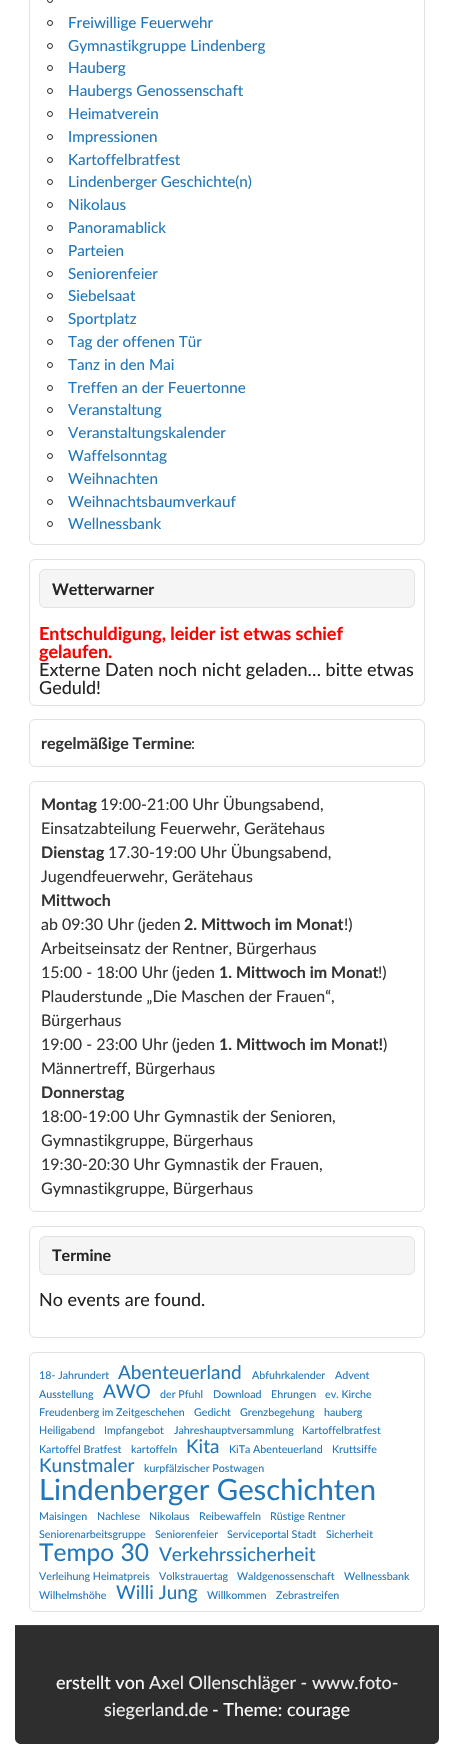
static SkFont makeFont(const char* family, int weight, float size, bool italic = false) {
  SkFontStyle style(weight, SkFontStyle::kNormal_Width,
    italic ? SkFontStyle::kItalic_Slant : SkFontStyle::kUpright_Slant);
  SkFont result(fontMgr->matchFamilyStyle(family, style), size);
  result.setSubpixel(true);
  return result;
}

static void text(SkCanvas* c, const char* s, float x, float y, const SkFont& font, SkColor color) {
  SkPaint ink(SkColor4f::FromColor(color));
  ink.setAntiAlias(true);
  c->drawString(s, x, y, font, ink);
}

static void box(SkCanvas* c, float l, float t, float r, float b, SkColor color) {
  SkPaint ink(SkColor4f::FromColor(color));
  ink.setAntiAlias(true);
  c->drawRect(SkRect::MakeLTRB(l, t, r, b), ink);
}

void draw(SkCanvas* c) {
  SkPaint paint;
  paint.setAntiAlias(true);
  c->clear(0xffffffff);
  paint.setStyle(SkPaint::kStroke_Style);
  paint.setStrokeWidth(1);
  paint.setColor(0xffe2e2e2);
  c->drawRoundRect(SkRect::MakeLTRB(29.5f, -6.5f, 424.5f, 544.5f), 5.5f, 5.5f, paint);
  paint.setColor(0xff252525);
  c->drawCircle(50, 0, 2.5f, paint);
  c->drawCircle(50, 23, 2.5f, paint);
  SkFont face1 = makeFont("Lato", 400, 15.25f);
  text(c, "Freiwillige Feuerwehr", 68, 28, face1, 0xff2277bb);
  c->drawCircle(50, 46, 2.5f, paint);
  text(c, "Gymnastikgruppe Lindenberg", 68, 51, face1, 0xff2277bb);
  c->drawCircle(50, 68, 2.5f, paint);
  text(c, "Hauberg", 68, 73, face1, 0xff2277bb);
  c->drawCircle(50, 91, 2.5f, paint);
  text(c, "Haubergs Genossenschaft", 68, 96, face1, 0xff2277bb);
  c->drawCircle(50, 114, 2.5f, paint);
  text(c, "Heimatverein", 68, 119, face1, 0xff2277bb);
  c->drawCircle(50, 137, 2.5f, paint);
  text(c, "Impressionen", 68, 142, face1, 0xff2277bb);
  c->drawCircle(50, 160, 2.5f, paint);
  text(c, "Kartoffelbratfest", 68, 165, face1, 0xff2277bb);
  c->drawCircle(50, 182, 2.5f, paint);
  text(c, "Lindenberger Geschichte(n)", 68, 187, face1, 0xff2277bb);
  c->drawCircle(50, 205, 2.5f, paint);
  text(c, "Nikolaus", 68, 210, face1, 0xff2277bb);
  c->drawCircle(50, 228, 2.5f, paint);
  text(c, "Panoramablick", 68, 233, face1, 0xff2277bb);
  c->drawCircle(50, 251, 2.5f, paint);
  text(c, "Parteien", 68, 256, face1, 0xff2277bb);
  c->drawCircle(50, 274, 2.5f, paint);
  text(c, "Seniorenfeier", 68, 279, face1, 0xff2277bb);
  c->drawCircle(50, 296, 2.5f, paint);
  text(c, "Siebelsaat", 68, 301, face1, 0xff2277bb);
  c->drawCircle(50, 319, 2.5f, paint);
  text(c, "Sportplatz", 68, 324, face1, 0xff2277bb);
  c->drawCircle(50, 342, 2.5f, paint);
  text(c, "Tag der offenen Tür", 68, 347, face1, 0xff2277bb);
  c->drawCircle(50, 365, 2.5f, paint);
  text(c, "Tanz in den Mai", 68, 370, face1, 0xff2277bb);
  c->drawCircle(50, 388, 2.5f, paint);
  text(c, "Treffen an der Feuertonne", 68, 393, face1, 0xff2277bb);
  c->drawCircle(50, 410, 2.5f, paint);
  text(c, "Veranstaltung", 68, 415, face1, 0xff2277bb);
  c->drawCircle(50, 433, 2.5f, paint);
  text(c, "Veranstaltungskalender", 68, 438, face1, 0xff2277bb);
  c->drawCircle(50, 456, 2.5f, paint);
  text(c, "Waffelsonntag", 68, 461, face1, 0xff2277bb);
  c->drawCircle(50, 479, 2.5f, paint);
  text(c, "Weihnachten", 68, 484, face1, 0xff2277bb);
  c->drawCircle(50, 502, 2.5f, paint);
  text(c, "Weihnachtsbaumverkauf", 68, 507, face1, 0xff2277bb);
  c->drawCircle(50, 524, 2.5f, paint);
  text(c, "Wellnessbank", 68, 529, face1, 0xff2277bb);
  paint.setColor(0xffe2e2e2);
  c->drawRoundRect(SkRect::MakeLTRB(29.5f, 559.5f, 424.5f, 705.5f), 5.5f, 5.5f, paint);
  paint.setStyle(SkPaint::kFill_Style);
  paint.setColor(0xfff5f5f5);
  c->drawRoundRect(SkRect::MakeLTRB(39.5f, 569.5f, 414.5f, 607.5f), 5.5f, 5.5f, paint);
  paint.setStyle(SkPaint::kStroke_Style);
  paint.setColor(0xffe2e2e2);
  c->drawRoundRect(SkRect::MakeLTRB(39.5f, 569.5f, 414.5f, 607.5f), 5.5f, 5.5f, paint);
  SkFont face2 = makeFont("Lato", 700, 16);
  text(c, "Wetterwarner", 52, 595, face2, 0xff252525);
  SkFont face3 = makeFont("Lato", 700, 18);
  text(c, "Entschuldigung, leider ist etwas schief", 39, 640, face3, 0xffff0000);
  text(c, "gelaufen.", 39, 658, face3, 0xffff0000);
  SkFont face4 = makeFont("Lato", 400, 18);
  text(c, "Externe Daten noch nicht geladen… bitte etwas", 39, 676, face4, 0xff252525);
  text(c, "Geduld!", 39, 694, face4, 0xff252525);
  c->drawRoundRect(SkRect::MakeLTRB(29.5f, 719.5f, 424.5f, 766.5f), 5.5f, 5.5f, paint);
  text(c, "regelmäßige Termine", 41, 749, face2, 0xff353535);
  SkFont face5 = makeFont("Lato", 400, 16);
  text(c, ":", 191, 749, face5, 0xff353535);
  c->drawRoundRect(SkRect::MakeLTRB(29.5f, 781.5f, 424.5f, 1211.5f), 5.5f, 5.5f, paint);
  text(c, "Montag", 41, 810, face2, 0xff353535);
  text(c, "19:00-21:00 Uhr Übungsabend,", 100, 810, face5, 0xff353535);
  text(c, "Einsatzabteilung Feuerwehr, Gerätehaus", 41, 834, face5, 0xff353535);
  text(c, "Dienstag", 41, 858, face2, 0xff353535);
  text(c, "17.30-19:00 Uhr Übungsabend,", 108, 858, face5, 0xff353535);
  text(c, "Jugendfeuerwehr, Gerätehaus", 41, 882, face5, 0xff353535);
  text(c, "Mittwoch", 41, 906, face2, 0xff353535);
  text(c, "ab 09:30 Uhr (jeden", 41, 930, face5, 0xff353535);
  text(c, "2. Mittwoch im Monat", 184, 930, face2, 0xff353535);
  text(c, "!)", 344, 930, face5, 0xff353535);
  text(c, "Arbeitseinsatz der Rentner, Bürgerhaus", 41, 954, face5, 0xff353535);
  text(c, "15:00 - 18:00 Uhr (jeden", 41, 978, face5, 0xff353535);
  text(c, "1. Mittwoch im Monat", 219, 978, face2, 0xff353535);
  text(c, "!)", 378, 978, face5, 0xff353535);
  text(c, "Plauderstunde „Die Maschen der Frauen“,", 41, 1002, face5, 0xff353535);
  text(c, "Bürgerhaus", 41, 1026, face5, 0xff353535);
  text(c, "19:00 - 23:00 Uhr (jeden", 41, 1050, face5, 0xff353535);
  text(c, "1. Mittwoch im Monat!", 219, 1050, face2, 0xff353535);
  text(c, ")", 383, 1050, face5, 0xff353535);
  text(c, "Männertreff, Bürgerhaus", 41, 1074, face5, 0xff353535);
  text(c, "Donnerstag", 41, 1098, face2, 0xff353535);
  text(c, "18:00-19:00 Uhr Gymnastik der Senioren,", 41, 1122, face5, 0xff353535);
  text(c, "Gymnastikgruppe, Bürgerhaus", 41, 1146, face5, 0xff353535);
  text(c, "19:30-20:30 Uhr Gymnastik der Frauen,", 41, 1170, face5, 0xff353535);
  text(c, "Gymnastikgruppe, Bürgerhaus", 41, 1194, face5, 0xff353535);
  c->drawRoundRect(SkRect::MakeLTRB(29.5f, 1226.5f, 424.5f, 1337.5f), 5.5f, 5.5f, paint);
  paint.setStyle(SkPaint::kFill_Style);
  paint.setColor(0xfff5f5f5);
  c->drawRoundRect(SkRect::MakeLTRB(39.5f, 1236.5f, 414.5f, 1274.5f), 5.5f, 5.5f, paint);
  paint.setStyle(SkPaint::kStroke_Style);
  paint.setColor(0xffe2e2e2);
  c->drawRoundRect(SkRect::MakeLTRB(39.5f, 1236.5f, 414.5f, 1274.5f), 5.5f, 5.5f, paint);
  text(c, "Termine", 52, 1261, face2, 0xff252525);
  text(c, "No events are found.", 39, 1306, face4, 0xff252525);
  c->drawRoundRect(SkRect::MakeLTRB(29.5f, 1352.5f, 424.5f, 1611.5f), 5.5f, 5.5f, paint);
  SkFont face6 = makeFont("Lato", 400, 10.7f);
  text(c, "18- Jahrundert", 39, 1379, face6, 0xff2277bb);
  SkFont face7 = makeFont("Lato", 400, 19);
  text(c, "Abenteuerland", 118, 1379, face7, 0xff2277bb);
  text(c, "Abfuhrkalender", 252, 1379, face6, 0xff2277bb);
  text(c, "Advent", 335, 1379, face6, 0xff2277bb);
  text(c, "Ausstellung", 39, 1398, face6, 0xff2277bb);
  text(c, "AWO", 103, 1398, face7, 0xff2277bb);
  text(c, "der Pfuhl", 160, 1398, face6, 0xff2277bb);
  text(c, "Download", 213, 1398, face6, 0xff2277bb);
  text(c, "Ehrungen", 271, 1398, face6, 0xff2277bb);
  text(c, "ev. Kirche", 325, 1398, face6, 0xff2277bb);
  text(c, "Freudenberg im Zeitgeschehen", 39, 1416, face6, 0xff2277bb);
  text(c, "Gedicht", 194, 1416, face6, 0xff2277bb);
  text(c, "Grenzbegehung", 240, 1416, face6, 0xff2277bb);
  text(c, "hauberg", 324, 1416, face6, 0xff2277bb);
  text(c, "Heiligabend", 39, 1434, face6, 0xff2277bb);
  text(c, "Impfangebot", 104, 1434, face6, 0xff2277bb);
  text(c, "Jahreshauptversammlung", 174, 1434, face6, 0xff2277bb);
  text(c, "Kartoffelbratfest", 302, 1434, face6, 0xff2277bb);
  text(c, "Kartoffel Bratfest", 39, 1453, face6, 0xff2277bb);
  text(c, "kartoffeln", 131, 1453, face6, 0xff2277bb);
  text(c, "Kita", 186, 1453, face7, 0xff2277bb);
  text(c, "KiTa Abenteuerland", 229, 1453, face6, 0xff2277bb);
  text(c, "Kruttsiffe", 332, 1453, face6, 0xff2277bb);
  text(c, "Kunstmaler", 39, 1472, face7, 0xff2277bb);
  text(c, "kurpfälzischer Postwagen", 144, 1472, face6, 0xff2277bb);
  SkFont face8 = makeFont("Lato", 400, 29.25f);
  text(c, "Lindenberger Geschichten", 39, 1500, face8, 0xff2277bb);
  text(c, "Maisingen", 39, 1520, face6, 0xff2277bb);
  text(c, "Nachlese", 97, 1520, face6, 0xff2277bb);
  text(c, "Nikolaus", 149, 1520, face6, 0xff2277bb);
  text(c, "Reibewaffeln", 199, 1520, face6, 0xff2277bb);
  text(c, "Rüstige Rentner", 270, 1520, face6, 0xff2277bb);
  text(c, "Seniorenarbeitsgruppe", 39, 1538, face6, 0xff2277bb);
  text(c, "Seniorenfeier", 155, 1538, face6, 0xff2277bb);
  text(c, "Serviceportal Stadt", 227, 1538, face6, 0xff2277bb);
  text(c, "Sicherheit", 326, 1538, face6, 0xff2277bb);
  SkFont face9 = makeFont("Lato", 400, 24.5f);
  text(c, "Tempo 30", 39, 1561, face9, 0xff2277bb);
  text(c, "Verkehrssicherheit", 159, 1561, face7, 0xff2277bb);
  text(c, "Verleihung Heimatpreis", 39, 1580, face6, 0xff2277bb);
  text(c, "Volkstrauertag", 159, 1580, face6, 0xff2277bb);
  text(c, "Waldgenossenschaft", 237, 1580, face6, 0xff2277bb);
  text(c, "Wellnessbank", 344, 1580, face6, 0xff2277bb);
  text(c, "Wilhelmshöhe", 39, 1599, face6, 0xff2277bb);
  text(c, "Willi Jung", 116, 1599, face7, 0xff2277bb);
  text(c, "Willkommen", 207, 1599, face6, 0xff2277bb);
  text(c, "Zebrastreifen", 276, 1599, face6, 0xff2277bb);
  paint.setStyle(SkPaint::kFill_Style);
  paint.setColor(0xff2e2e2e);
  c->drawPath(SkPathBuilder().moveTo(15, 1625).lineTo(439, 1625).lineTo(439, 1738).cubicTo(439, 1741.5f, 436.5f, 1744, 433, 1744).lineTo(21, 1744).cubicTo(17.5f, 1744, 15, 1741.5f, 15, 1738).close().detach(), paint);
  box(c, 15, 1625, 439, 1626, 0xff3e3e3e);
  text(c, "erstellt von", 56, 1689, face4, 0xffffffff);
  text(c, "Axel Ollenschläger - www.foto-", 149, 1689, face4, 0xffeeeeee);
  text(c, "siegerland.de", 104, 1716, face4, 0xffeeeeee);
  text(c, "- Theme: courage", 212, 1716, face4, 0xffffffff);
}
